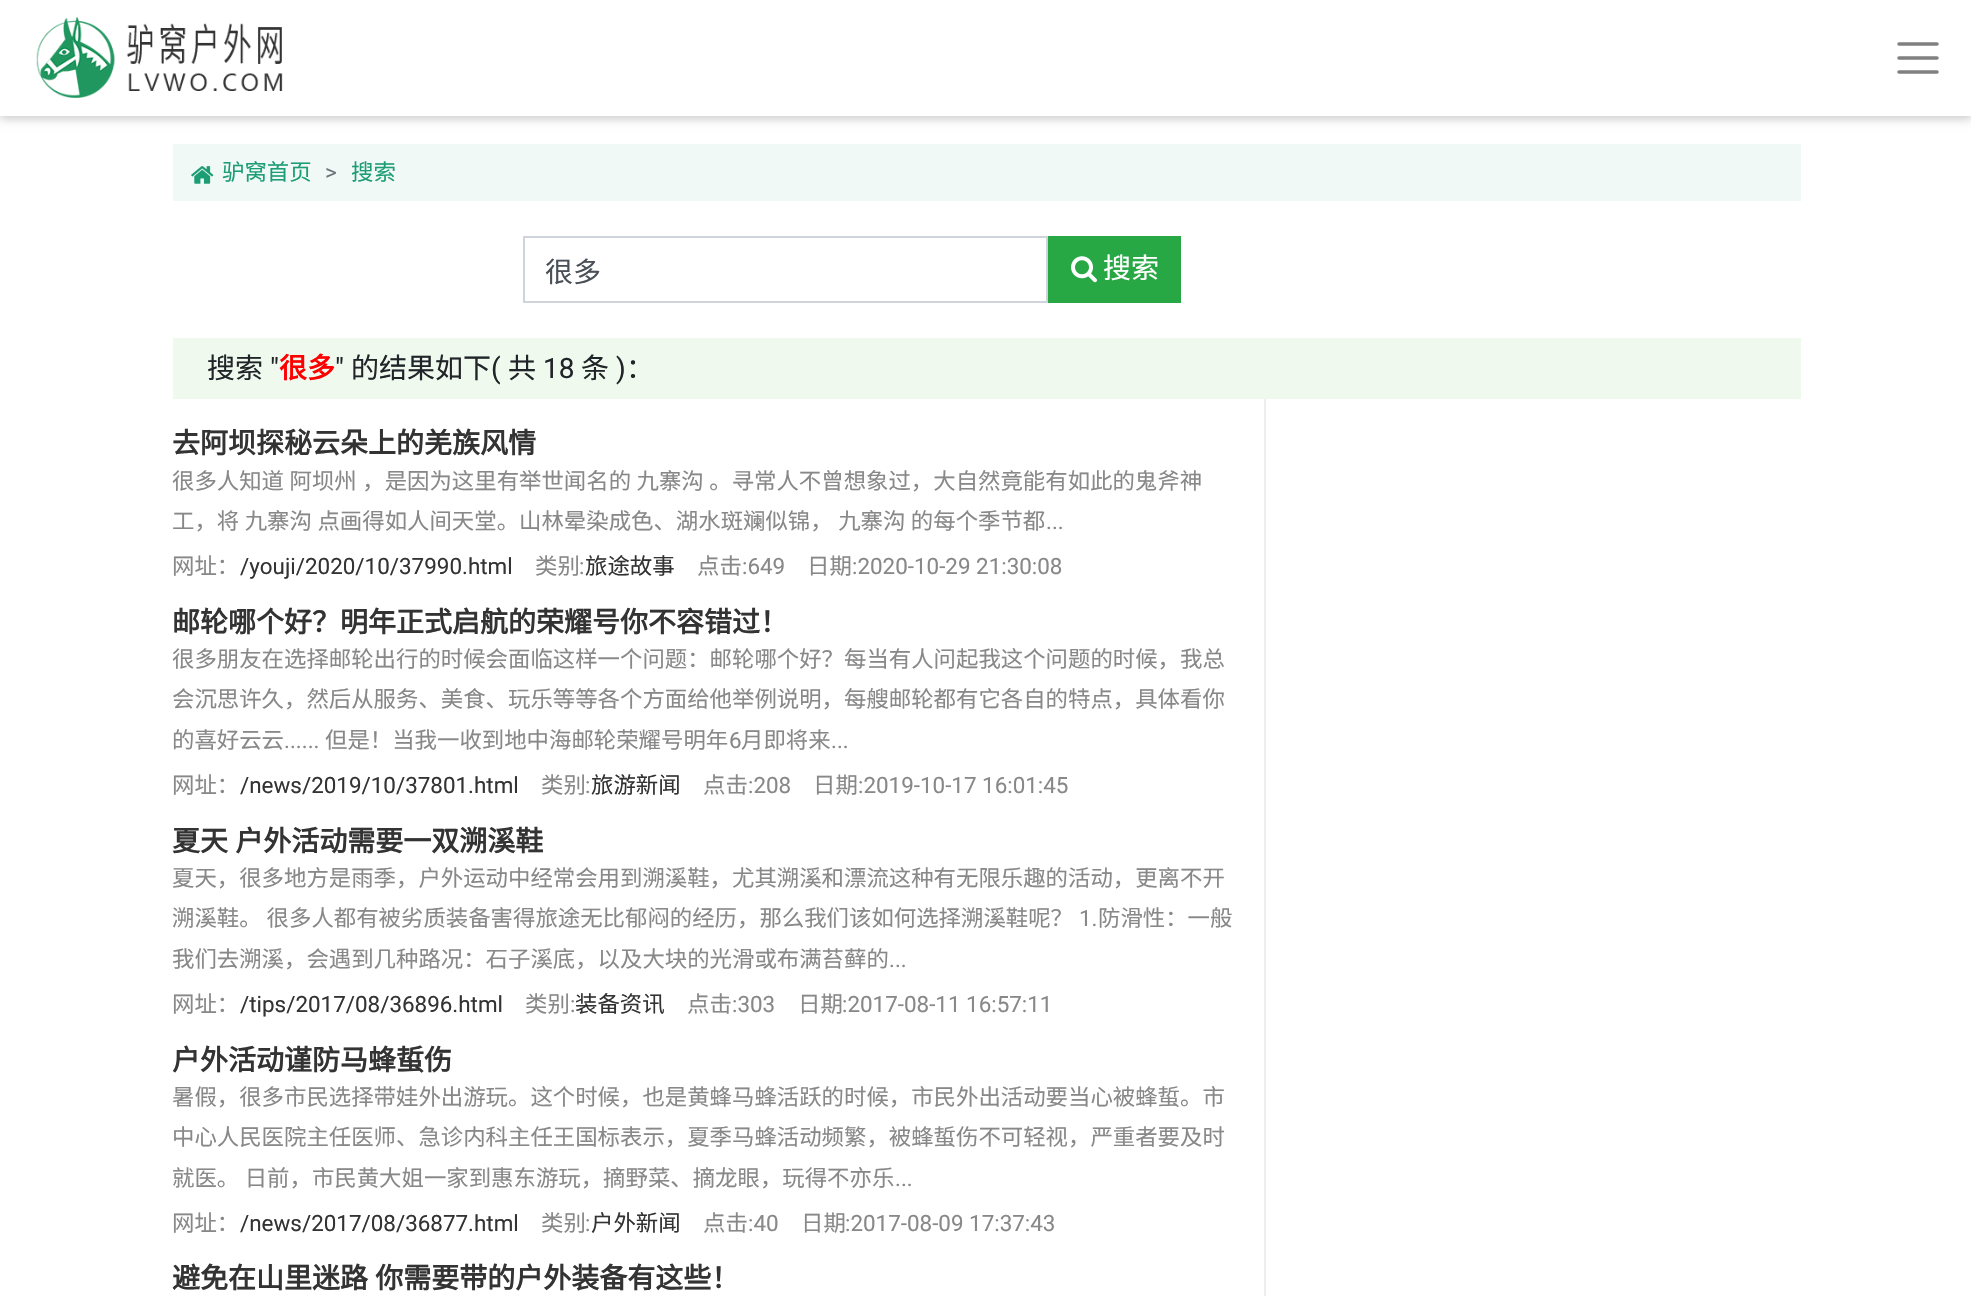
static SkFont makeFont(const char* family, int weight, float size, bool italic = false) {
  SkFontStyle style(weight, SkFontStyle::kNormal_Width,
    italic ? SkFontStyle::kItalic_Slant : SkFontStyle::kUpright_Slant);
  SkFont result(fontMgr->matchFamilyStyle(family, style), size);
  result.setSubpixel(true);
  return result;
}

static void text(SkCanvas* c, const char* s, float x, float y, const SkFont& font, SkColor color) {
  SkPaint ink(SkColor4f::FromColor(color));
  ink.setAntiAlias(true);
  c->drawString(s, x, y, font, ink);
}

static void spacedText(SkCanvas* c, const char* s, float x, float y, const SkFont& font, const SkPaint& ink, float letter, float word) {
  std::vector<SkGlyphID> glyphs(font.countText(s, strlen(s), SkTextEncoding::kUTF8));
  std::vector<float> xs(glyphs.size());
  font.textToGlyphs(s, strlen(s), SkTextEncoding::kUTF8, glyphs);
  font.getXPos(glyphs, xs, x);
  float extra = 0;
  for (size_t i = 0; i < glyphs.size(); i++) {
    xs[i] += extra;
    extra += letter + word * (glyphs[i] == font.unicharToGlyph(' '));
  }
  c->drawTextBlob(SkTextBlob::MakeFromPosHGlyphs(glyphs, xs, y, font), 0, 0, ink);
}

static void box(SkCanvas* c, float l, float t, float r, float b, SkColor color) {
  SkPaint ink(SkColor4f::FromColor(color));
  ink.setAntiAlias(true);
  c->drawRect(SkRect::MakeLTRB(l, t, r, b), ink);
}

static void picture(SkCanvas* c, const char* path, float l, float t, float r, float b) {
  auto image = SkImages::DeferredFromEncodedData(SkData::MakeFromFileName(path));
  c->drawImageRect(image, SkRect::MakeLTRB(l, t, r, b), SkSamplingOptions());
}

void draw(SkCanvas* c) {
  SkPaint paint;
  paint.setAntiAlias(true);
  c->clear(0xffffffff);
  c->save();
  c->clipPath(SkPathBuilder(SkPathFillType::kEvenOdd).moveTo(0, 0).lineTo(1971, 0).lineTo(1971, 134).lineTo(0, 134).close().moveTo(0, 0).lineTo(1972, 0).lineTo(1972, 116).lineTo(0, 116).close().detach(), true);
  paint.setColor(0xffcccccc);
  paint.setMaskFilter(SkMaskFilter::MakeBlur(kNormal_SkBlurStyle, 4.5f));
  c->drawRect(SkRect::MakeLTRB(0, 4, 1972, 119), paint);
  paint.setMaskFilter(nullptr);
  c->restore();
  picture(c, "img_01.png", 36, 16, 283, 98);
  paint.setStyle(SkPaint::kStroke_Style);
  paint.setStrokeWidth(3.5f);
  paint.setStrokeCap(SkPaint::kRound_Cap);
  paint.setColor(0xff808080);
  c->drawPath(SkPathBuilder().moveTo(1899, 44).lineTo(1937, 44).moveTo(1899, 58).lineTo(1937, 58).moveTo(1899, 72).lineTo(1937, 72).detach(), paint);
  box(c, 173, 144, 1801, 201, 0xfff1f9f7);
  picture(c, "img_02.png", 191, 166, 214, 184);
  SkFont face1 = makeFont("Noto Sans CJK SC", 400, 22.4f);
  text(c, "驴窝首页", 222, 180, face1, 0xff1d9d74);
  SkFont face2 = makeFont("Roboto", 400, 22.4f);
  text(c, ">", 325, 180, face2, 0xff6c757d);
  text(c, "搜索", 351, 180, face1, 0xff1d9d74);
  paint.setStrokeWidth(2);
  paint.setStrokeCap(SkPaint::kButt_Cap);
  paint.setColor(0xffced4da);
  c->drawRect(SkRect::MakeLTRB(524, 237, 1047, 302), paint);
  SkFont face3 = makeFont("Noto Sans CJK SC", 400, 28);
  text(c, "很多", 545, 282, face3, 0xff495057);
  box(c, 1048, 236, 1181, 303, 0xff28a745);
  picture(c, "img_03.png", 1071, 256, 1097, 283);
  text(c, "搜索", 1103, 278, face3, 0xffffffff);
  box(c, 173, 338, 1801, 399, 0xfff0f9ee);
  text(c, "搜索", 207, 378, face3, 0xff212529);
  SkFont face4 = makeFont("Roboto", 400, 28);
  text(c, "\"", 270, 378, face4, 0xff212529);
  SkFont face5 = makeFont("Noto Sans CJK SC", 700, 28);
  text(c, "很多", 279, 378, face5, 0xffff0000);
  text(c, "\"", 335, 378, face4, 0xff212529);
  text(c, "的结果如下", 351, 378, face3, 0xff212529);
  text(c, "(", 491, 378, face4, 0xff212529);
  text(c, "共", 508, 378, face3, 0xff212529);
  text(c, "18", 543, 378, face4, 0xff212529);
  text(c, "条", 581, 378, face3, 0xff212529);
  text(c, ")", 616, 378, face4, 0xff212529);
  text(c, "：", 626, 378, face3, 0xff212529);
  box(c, 1264, 399, 1266, 1296, 0xffeeeeee);
  text(c, "去阿坝探秘云朵上的羌族风情", 172, 453, face5, 0xff333333);
  paint.setStyle(SkPaint::kFill_Style);
  paint.setColor(0xff888888);
  spacedText(c, "很多人知道 阿坝州 ，是因为这里有举世闻名的 九寨沟 。寻常人不曾想象过，大自然竟能有如此的鬼斧神", 172, 489, face1, paint, 0, 0.5f);
  spacedText(c, "工，将 九寨沟 点画得如人间天堂。山林晕染成色、湖水斑斓似锦， 九寨沟 的每个季节都", 172, 529, face1, paint, 0, 0.5f);
  text(c, "...", 1046, 529, face2, 0xff888888);
  text(c, "网址：", 172, 574, face1, 0xff888888);
  text(c, "/youji/2020/10/37990.html", 240, 574, face2, 0xff333333);
  text(c, "类别", 535, 574, face1, 0xff888888);
  text(c, ":", 579, 574, face2, 0xff888888);
  text(c, "旅途故事", 585, 574, face1, 0xff333333);
  text(c, "点击", 697, 574, face1, 0xff888888);
  text(c, ":649", 742, 574, face2, 0xff888888);
  text(c, "日期", 807, 574, face1, 0xff888888);
  text(c, ":2020-10-29 21:30:08", 852, 574, face2, 0xff888888);
  text(c, "邮轮哪个好？明年正式启航的荣耀号你不容错过！", 172, 632, face5, 0xff333333);
  text(c, "很多朋友在选择邮轮出行的时候会面临这样一个问题：邮轮哪个好？每当有人问起我这个问题的时候，我总", 172, 667, face1, 0xff888888);
  text(c, "会沉思许久，然后从服务、美食、玩乐等等各个方面给他举例说明，每艘邮轮都有它各自的特点，具体看你", 172, 707, face1, 0xff888888);
  text(c, "的喜好云云", 172, 748, face1, 0xff888888);
  text(c, "......", 284, 748, face2, 0xff888888);
  text(c, "但是！当我一收到地中海邮轮荣耀号明年", 325, 748, face1, 0xff888888);
  text(c, "6", 729, 748, face2, 0xff888888);
  text(c, "月即将来", 741, 748, face1, 0xff888888);
  text(c, "...", 831, 748, face2, 0xff888888);
  text(c, "网址：", 172, 793, face1, 0xff888888);
  text(c, "/news/2019/10/37801.html", 240, 793, face2, 0xff333333);
  text(c, "类别", 541, 793, face1, 0xff888888);
  text(c, ":", 585, 793, face2, 0xff888888);
  text(c, "旅游新闻", 591, 793, face1, 0xff333333);
  text(c, "点击", 703, 793, face1, 0xff888888);
  text(c, ":208", 748, 793, face2, 0xff888888);
  text(c, "日期", 813, 793, face1, 0xff888888);
  text(c, ":2019-10-17 16:01:45", 858, 793, face2, 0xff888888);
  paint.setColor(0xff333333);
  spacedText(c, "夏天 户外活动需要一双溯溪鞋", 172, 851, face5, paint, 0, 1);
  text(c, "夏天，很多地方是雨季，户外运动中经常会用到溯溪鞋，尤其溯溪和漂流这种有无限乐趣的活动，更离不开", 172, 886, face1, 0xff888888);
  text(c, "溯溪鞋。 很多人都有被劣质装备害得旅途无比郁闷的经历，那么我们该如何选择溯溪鞋呢？", 172, 926, face1, 0xff888888);
  text(c, "1.", 1079, 926, face2, 0xff888888);
  text(c, "防滑性：一般", 1098, 926, face1, 0xff888888);
  text(c, "我们去溯溪，会遇到几种路况：石子溪底，以及大块的光滑或布满苔藓的", 172, 967, face1, 0xff888888);
  text(c, "...", 889, 967, face2, 0xff888888);
  text(c, "网址：", 172, 1012, face1, 0xff888888);
  text(c, "/tips/2017/08/36896.html", 240, 1012, face2, 0xff333333);
  text(c, "类别", 525, 1012, face1, 0xff888888);
  text(c, ":", 570, 1012, face2, 0xff888888);
  text(c, "装备资讯", 575, 1012, face1, 0xff333333);
  text(c, "点击", 687, 1012, face1, 0xff888888);
  text(c, ":303", 732, 1012, face2, 0xff888888);
  text(c, "日期", 798, 1012, face1, 0xff888888);
  text(c, ":2017-08-11 16:57:11", 842, 1012, face2, 0xff888888);
  text(c, "户外活动谨防马蜂蜇伤", 172, 1070, face5, 0xff333333);
  text(c, "暑假，很多市民选择带娃外出游玩。这个时候，也是黄蜂马蜂活跃的时候，市民外出活动要当心被蜂蜇。市", 172, 1105, face1, 0xff888888);
  text(c, "中心人民医院主任医师、急诊内科主任王国标表示，夏季马蜂活动频繁，被蜂蜇伤不可轻视，严重者要及时", 172, 1145, face1, 0xff888888);
  paint.setColor(0xff888888);
  spacedText(c, "就医。 日前，市民黄大姐一家到惠东游玩，摘野菜、摘龙眼，玩得不亦乐", 172, 1186, face1, paint, 0, 0.5f);
  text(c, "...", 895, 1186, face2, 0xff888888);
  text(c, "网址：", 172, 1231, face1, 0xff888888);
  text(c, "/news/2017/08/36877.html", 240, 1231, face2, 0xff333333);
  text(c, "类别", 541, 1231, face1, 0xff888888);
  text(c, ":", 585, 1231, face2, 0xff888888);
  text(c, "户外新闻", 591, 1231, face1, 0xff333333);
  text(c, "点击", 703, 1231, face1, 0xff888888);
  text(c, ":40", 748, 1231, face2, 0xff888888);
  text(c, "日期", 801, 1231, face1, 0xff888888);
  text(c, ":2017-08-09 17:37:43", 845, 1231, face2, 0xff888888);
  paint.setColor(0xff333333);
  spacedText(c, "避免在山里迷路 你需要带的户外装备有这些！", 172, 1288, face5, paint, 0, 1);
}
